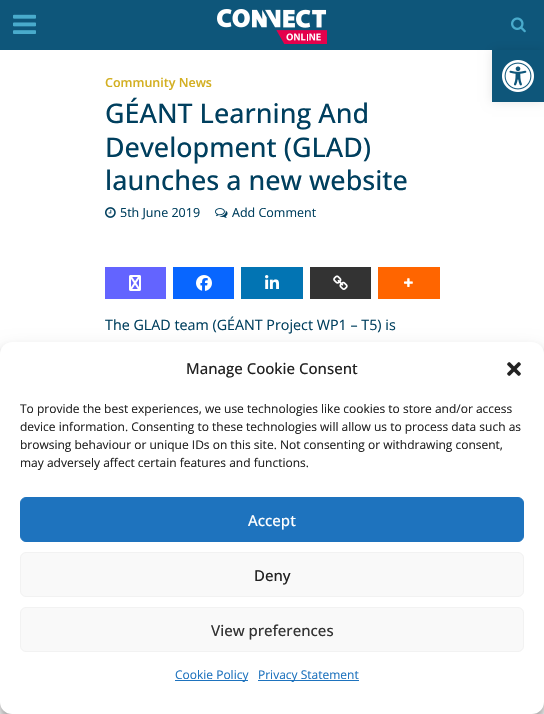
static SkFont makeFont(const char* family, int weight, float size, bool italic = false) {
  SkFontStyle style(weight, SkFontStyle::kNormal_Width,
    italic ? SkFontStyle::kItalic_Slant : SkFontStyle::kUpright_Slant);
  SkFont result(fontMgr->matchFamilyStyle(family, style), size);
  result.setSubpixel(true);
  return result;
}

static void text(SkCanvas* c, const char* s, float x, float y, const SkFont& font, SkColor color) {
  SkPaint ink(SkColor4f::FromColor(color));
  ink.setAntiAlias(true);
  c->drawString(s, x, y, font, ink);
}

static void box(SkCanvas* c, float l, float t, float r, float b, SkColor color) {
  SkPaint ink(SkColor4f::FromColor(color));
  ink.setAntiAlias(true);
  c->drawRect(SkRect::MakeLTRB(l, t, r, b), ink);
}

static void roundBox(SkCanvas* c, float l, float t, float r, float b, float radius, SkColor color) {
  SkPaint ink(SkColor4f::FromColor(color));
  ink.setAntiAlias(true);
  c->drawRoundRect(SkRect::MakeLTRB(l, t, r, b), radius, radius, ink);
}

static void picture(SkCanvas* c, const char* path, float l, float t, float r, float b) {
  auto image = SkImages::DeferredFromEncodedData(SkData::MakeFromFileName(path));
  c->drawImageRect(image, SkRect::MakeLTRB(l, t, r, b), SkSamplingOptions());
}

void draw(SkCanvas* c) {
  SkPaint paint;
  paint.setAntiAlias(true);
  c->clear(0xffffffff);
  box(c, 0, 0, 544, 50, 0xff0e567a);
  picture(c, "img_01.png", 13, 14, 36, 34);
  picture(c, "img_02.png", 217, 9, 327, 44);
  picture(c, "img_03.png", 511, 17, 526, 33);
  SkFont face1 = makeFont("Open Sans", 600, 12.5f);
  text(c, "Community News", 105, 87, face1, 0xffd3af21);
  SkFont face2 = makeFont("Open Sans", 500, 26.9f);
  text(c, "GÉANT Learning And", 105, 123, face2, 0xff003f5e);
  text(c, "Development (GLAD)", 105, 157, face2, 0xff003f5e);
  text(c, "launches a new website", 105, 190, face2, 0xff003f5e);
  picture(c, "img_04.png", 105, 207, 116, 218);
  SkFont face3 = makeFont("Open Sans", 400, 12.5f);
  text(c, "5th June 2019", 120, 217, face3, 0xff003f5e);
  picture(c, "img_05.png", 215, 208, 228, 218);
  text(c, "Add Comment", 232, 217, face3, 0xff003f5e);
  box(c, 105, 267, 166, 299, 0xff6364ff);
  picture(c, "img_06.png", 129, 275, 141, 291);
  box(c, 173, 267, 234, 299, 0xff0866ff);
  picture(c, "img_07.png", 196, 275, 212, 291);
  box(c, 241, 267, 303, 299, 0xff0274b3);
  picture(c, "img_08.png", 265, 275, 279, 289);
  box(c, 310, 267, 371, 299, 0xff333333);
  picture(c, "img_09.png", 333, 275, 348, 290);
  box(c, 378, 267, 440, 299, 0xffff6500);
  picture(c, "img_10.png", 404, 278, 413, 287);
  SkFont face4 = makeFont("Open Sans", 400, 14.3f);
  text(c, "The GLAD team (GÉANT Project WP1 – T5) is", 105, 330, face4, 0xff003f5e);
  paint.setColor(0x1a000000);
  paint.setMaskFilter(SkMaskFilter::MakeBlur(kNormal_SkBlurStyle, 5));
  c->drawRect(SkRect::MakeLTRB(492, 50, 544, 102), paint);
  paint.setMaskFilter(nullptr);
  box(c, 492, 50, 544, 102, 0xff0e567a);
  picture(c, "img_11.png", 502, 60, 534, 92);
  paint.setColor(0x3b000000);
  paint.setMaskFilter(SkMaskFilter::MakeBlur(kNormal_SkBlurStyle, 3));
  c->drawRoundRect(SkRect::MakeLTRB(0, 348, 544, 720), 12, 12, paint);
  paint.setMaskFilter(nullptr);
  paint.setColor(0x30000000);
  paint.setMaskFilter(SkMaskFilter::MakeBlur(kNormal_SkBlurStyle, 10));
  c->drawRoundRect(SkRect::MakeLTRB(0, 352, 544, 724), 12, 12, paint);
  paint.setMaskFilter(nullptr);
  paint.setColor(0xff808080);
  paint.setMaskFilter(SkMaskFilter::MakeBlur(kNormal_SkBlurStyle, 2.5f));
  c->drawRoundRect(SkRect::MakeLTRB(474, 640, 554, 700), 2, 2, paint);
  paint.setMaskFilter(nullptr);
  roundBox(c, 0, 342, 544, 714, 12, 0xffffffff);
  SkFont face5 = makeFont("Open Sans", 500, 15);
  text(c, "Manage Cookie Consent", 186, 374, face5, 0xff222222);
  picture(c, "img_12.png", 507, 362, 521, 376);
  SkFont face6 = makeFont("Open Sans", 400, 12);
  text(c, "To provide the best experiences, we use technologies like cookies to store and/or access", 20, 413, face6, 0xff222222);
  text(c, "device information. Consenting to these technologies will allow us to process data such as", 20, 431, face6, 0xff222222);
  text(c, "browsing behaviour or unique IDs on this site. Not consenting or withdrawing consent,", 20, 449, face6, 0xff222222);
  text(c, "may adversely affect certain features and functions.", 20, 467, face6, 0xff222222);
  paint.setColor(0xff1e73be);
  c->drawRoundRect(SkRect::MakeLTRB(20.5f, 497.5f, 523.5f, 541.5f), 5.5f, 5.5f, paint);
  paint.setStyle(SkPaint::kStroke_Style);
  paint.setStrokeWidth(1);
  c->drawRoundRect(SkRect::MakeLTRB(20.5f, 497.5f, 523.5f, 541.5f), 5.5f, 5.5f, paint);
  text(c, "Accept", 248, 526, face5, 0xffffffff);
  paint.setStyle(SkPaint::kFill_Style);
  paint.setColor(0xfff9f9f9);
  c->drawRoundRect(SkRect::MakeLTRB(20.5f, 552.5f, 523.5f, 596.5f), 5.5f, 5.5f, paint);
  paint.setStyle(SkPaint::kStroke_Style);
  paint.setColor(0xfff2f2f2);
  c->drawRoundRect(SkRect::MakeLTRB(20.5f, 552.5f, 523.5f, 596.5f), 5.5f, 5.5f, paint);
  text(c, "Deny", 254, 581, face5, 0xff222222);
  paint.setStyle(SkPaint::kFill_Style);
  paint.setColor(0xfff9f9f9);
  c->drawRoundRect(SkRect::MakeLTRB(20.5f, 607.5f, 523.5f, 651.5f), 5.5f, 5.5f, paint);
  paint.setStyle(SkPaint::kStroke_Style);
  paint.setColor(0xfff2f2f2);
  c->drawRoundRect(SkRect::MakeLTRB(20.5f, 607.5f, 523.5f, 651.5f), 5.5f, 5.5f, paint);
  text(c, "View preferences", 211, 636, face5, 0xff333333);
  box(c, 175, 680, 248, 681, 0xff1e73be);
  text(c, "Cookie Policy", 175, 679, face6, 0xff1e73be);
  box(c, 258, 680, 359, 681, 0xff1e73be);
  text(c, "Privacy Statement", 258, 679, face6, 0xff1e73be);
}
